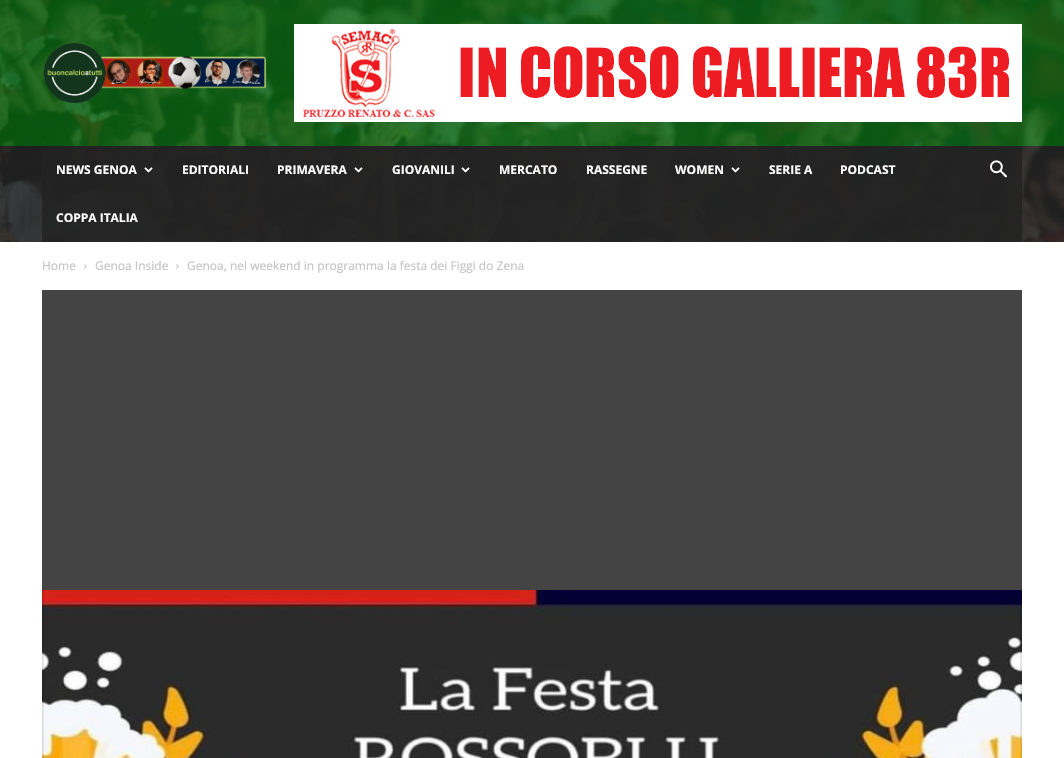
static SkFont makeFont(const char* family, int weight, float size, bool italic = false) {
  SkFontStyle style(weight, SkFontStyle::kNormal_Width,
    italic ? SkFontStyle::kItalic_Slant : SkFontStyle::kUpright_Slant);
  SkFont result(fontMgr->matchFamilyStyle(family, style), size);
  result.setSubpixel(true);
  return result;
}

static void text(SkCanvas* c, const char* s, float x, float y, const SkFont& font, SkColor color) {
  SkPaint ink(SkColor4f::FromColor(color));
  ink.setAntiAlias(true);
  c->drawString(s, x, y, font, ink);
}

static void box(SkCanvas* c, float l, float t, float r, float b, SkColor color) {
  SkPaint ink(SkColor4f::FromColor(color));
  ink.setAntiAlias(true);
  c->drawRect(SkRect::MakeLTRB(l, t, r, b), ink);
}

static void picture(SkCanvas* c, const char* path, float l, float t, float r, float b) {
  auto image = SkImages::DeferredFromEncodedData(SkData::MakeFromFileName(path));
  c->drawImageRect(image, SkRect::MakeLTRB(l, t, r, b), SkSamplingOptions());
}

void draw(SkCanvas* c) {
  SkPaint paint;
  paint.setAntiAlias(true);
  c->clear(0xffffffff);
  picture(c, "img_01.png", 0, 0, 1064, 242);
  box(c, 0, 0, 1064, 146, 0xc9086810);
  picture(c, "img_02.png", 43, 43, 266, 103);
  picture(c, "img_03.png", 294, 24, 1022, 122);
  box(c, 0, 146, 1064, 242, 0xd9222222);
  box(c, 42, 146, 1022, 242, 0xd9222222);
  SkFont face1 = makeFont("Open Sans", 700, 12);
  text(c, "NEWS GENOA", 56, 174, face1, 0xffffffff);
  picture(c, "img_04.png", 144, 167, 153, 173);
  text(c, "EDITORIALI", 182, 174, face1, 0xffffffff);
  text(c, "PRIMAVERA", 277, 174, face1, 0xffffffff);
  picture(c, "img_05.png", 354, 167, 363, 173);
  text(c, "GIOVANILI", 392, 174, face1, 0xffffffff);
  picture(c, "img_06.png", 461, 167, 470, 173);
  text(c, "MERCATO", 499, 174, face1, 0xffffffff);
  text(c, "RASSEGNE", 586, 174, face1, 0xffffffff);
  text(c, "WOMEN", 675, 174, face1, 0xffffffff);
  picture(c, "img_07.png", 731, 167, 740, 173);
  text(c, "SERIE A", 769, 174, face1, 0xffffffff);
  text(c, "PODCAST", 840, 174, face1, 0xffffffff);
  text(c, "COPPA ITALIA", 56, 222, face1, 0xffffffff);
  picture(c, "img_08.png", 990, 160, 1007, 178);
  SkFont face2 = makeFont("Open Sans", 400, 12);
  text(c, "Home", 42, 270, face2, 0xffc3c3c3);
  picture(c, "img_09.png", 84, 264, 87, 269);
  text(c, "Genoa Inside", 95, 270, face2, 0xffc3c3c3);
  picture(c, "img_09.png", 176, 264, 179, 269);
  text(c, "Genoa, nel weekend in programma la festa dei Figgi do Zena", 187, 270, face2, 0xffc3c3c3);
  box(c, 42, 290, 1022, 590, 0xff444444);
  picture(c, "img_10.png", 42, 590, 1022, 758);
}
